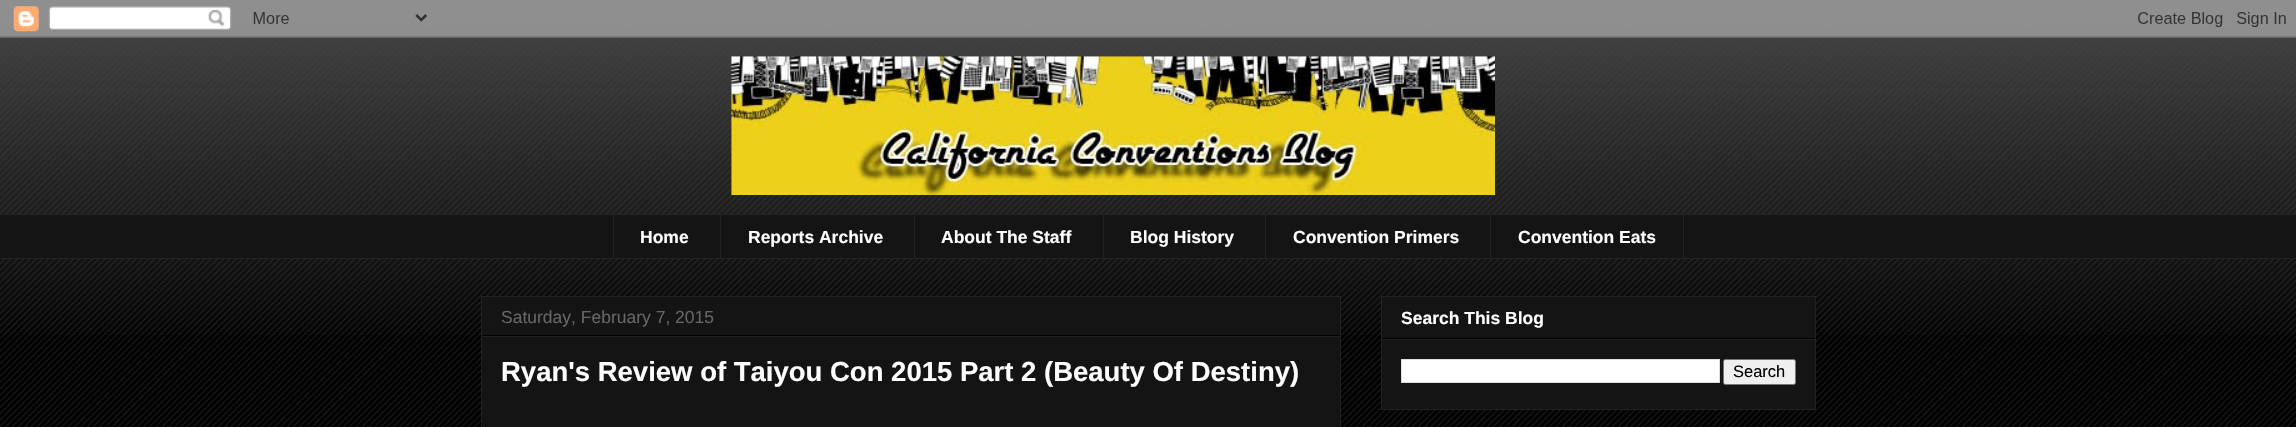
static SkFont makeFont(const char* family, int weight, float size, bool italic = false) {
  SkFontStyle style(weight, SkFontStyle::kNormal_Width,
    italic ? SkFontStyle::kItalic_Slant : SkFontStyle::kUpright_Slant);
  SkFont result(fontMgr->matchFamilyStyle(family, style), size);
  result.setSubpixel(true);
  return result;
}

static void text(SkCanvas* c, const char* s, float x, float y, const SkFont& font, SkColor color) {
  SkPaint ink(SkColor4f::FromColor(color));
  ink.setAntiAlias(true);
  c->drawString(s, x, y, font, ink);
}

static void box(SkCanvas* c, float l, float t, float r, float b, SkColor color) {
  SkPaint ink(SkColor4f::FromColor(color));
  ink.setAntiAlias(true);
  c->drawRect(SkRect::MakeLTRB(l, t, r, b), ink);
}

static void picture(SkCanvas* c, const char* path, float l, float t, float r, float b) {
  auto image = SkImages::DeferredFromEncodedData(SkData::MakeFromFileName(path));
  c->drawImageRect(image, SkRect::MakeLTRB(l, t, r, b), SkSamplingOptions());
}

void draw(SkCanvas* c) {
  SkPaint paint;
  paint.setAntiAlias(true);
  c->clear(0xff000000);
  picture(c, "img_01.png", 0, 16, 2296, 427);
  picture(c, "img_02.png", 0, 0, 2296, 335);
  picture(c, "img_03.png", 0, 0, 2296, 38);
  picture(c, "img_04.png", 731, 56, 1495, 195);
  box(c, 0, 215, 2296, 258, 0xff141414);
  box(c, 0, 214, 2296, 215, 0xff222222);
  box(c, 613, 214, 614, 259, 0xff222222);
  SkFont face1 = makeFont("Liberation Sans", 700, 17.5f);
  text(c, "Home", 640, 243, face1, 0xffffffff);
  box(c, 720, 214, 721, 259, 0xff222222);
  text(c, "Reports Archive", 748, 243, face1, 0xffffffff);
  box(c, 914, 214, 915, 259, 0xff222222);
  text(c, "About The Staff", 941, 243, face1, 0xffffffff);
  box(c, 1103, 214, 1104, 259, 0xff222222);
  text(c, "Blog History", 1130, 243, face1, 0xffffffff);
  box(c, 1265, 214, 1266, 259, 0xff222222);
  text(c, "Convention Primers", 1293, 243, face1, 0xffffffff);
  paint.setStyle(SkPaint::kStroke_Style);
  paint.setStrokeWidth(1);
  paint.setColor(0xff222222);
  c->drawRect(SkRect::MakeLTRB(1490.5f, 214.5f, 1683.5f, 258.5f), paint);
  text(c, "Convention Eats", 1518, 243, face1, 0xffffffff);
  box(c, 0, 258, 2296, 259, 0xff222222);
  paint.setStyle(SkPaint::kFill_Style);
  paint.setColor(0xff141414);
  c->drawRect(SkRect::MakeLTRB(481.5f, 296.5f, 1340.5f, 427.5f), paint);
  paint.setStyle(SkPaint::kStroke_Style);
  paint.setColor(0xff222222);
  c->drawRect(SkRect::MakeLTRB(481.5f, 296.5f, 1340.5f, 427.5f), paint);
  box(c, 483, 335, 1340, 336, 0xff000000);
  SkFont face2 = makeFont("Liberation Sans", 400, 17.5f);
  text(c, "Saturday, February 7, 2015", 501, 323, face2, 0xff666666);
  box(c, 483, 336, 1340, 337, 0xff222222);
  SkFont face3 = makeFont("Liberation Sans", 700, 27.5f);
  text(c, "Ryan's Review of Taiyou Con 2015 Part 2 (Beauty Of Destiny)", 501, 381, face3, 0xffffffff);
  paint.setStyle(SkPaint::kFill_Style);
  paint.setColor(0xff141414);
  c->drawRect(SkRect::MakeLTRB(1381.5f, 296.5f, 1815.5f, 409.5f), paint);
  paint.setStyle(SkPaint::kStroke_Style);
  paint.setColor(0xff222222);
  c->drawRect(SkRect::MakeLTRB(1381.5f, 296.5f, 1815.5f, 409.5f), paint);
  box(c, 1383, 338, 1815, 339, 0xff000000);
  text(c, "Search This Blog", 1401, 324, face1, 0xffffffff);
  box(c, 1383, 339, 1815, 340, 0xff222222);
  paint.setStyle(SkPaint::kFill_Style);
  paint.setColor(0xffffffff);
  c->drawRect(SkRect::MakeLTRB(1401.5f, 359.5f, 1719.5f, 382.5f), paint);
  paint.setStyle(SkPaint::kStroke_Style);
  paint.setColor(0xffdddddd);
  c->drawRect(SkRect::MakeLTRB(1401.5f, 359.5f, 1719.5f, 382.5f), paint);
  paint.setStyle(SkPaint::kFill_Style);
  paint.setColor(0xffefefef);
  c->drawRoundRect(SkRect::MakeLTRB(1723.5f, 359.5f, 1795.5f, 384.5f), 2, 2, paint);
  paint.setStyle(SkPaint::kStroke_Style);
  paint.setColor(0xff767676);
  c->drawRoundRect(SkRect::MakeLTRB(1723.5f, 359.5f, 1795.5f, 384.5f), 2, 2, paint);
  SkFont face4 = makeFont("Liberation Sans", 400, 16.5f);
  text(c, "Search", 1733, 377, face4, 0xff000000);
}
